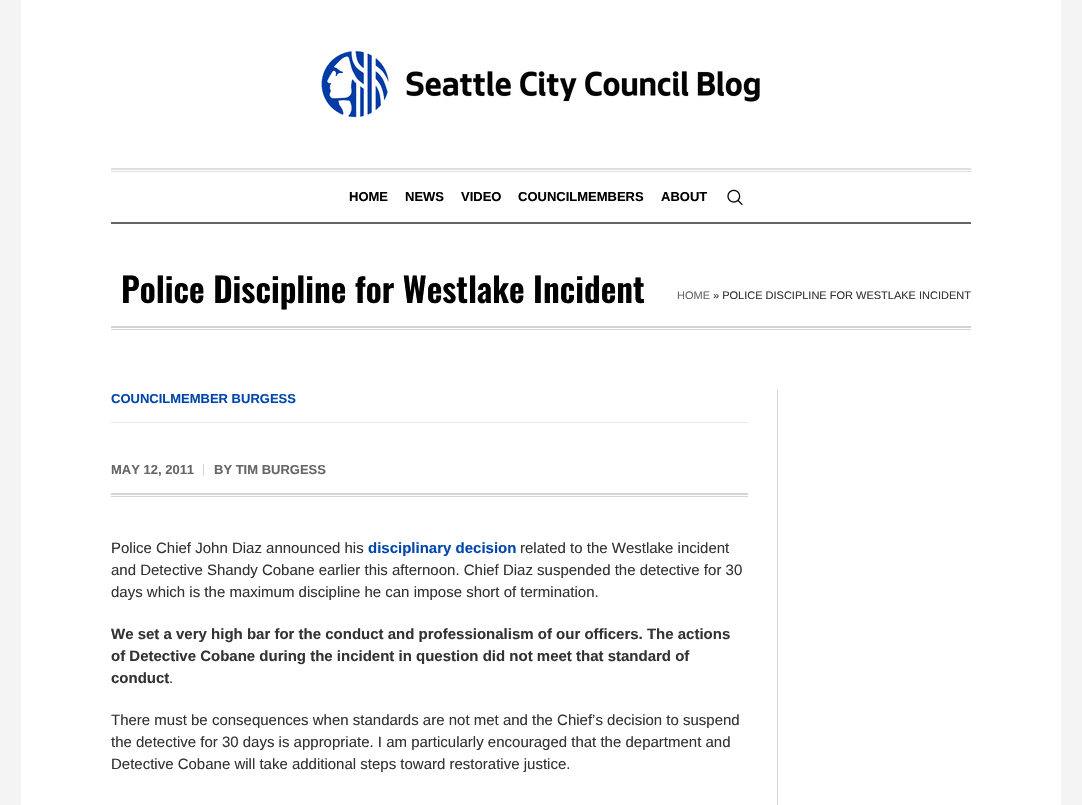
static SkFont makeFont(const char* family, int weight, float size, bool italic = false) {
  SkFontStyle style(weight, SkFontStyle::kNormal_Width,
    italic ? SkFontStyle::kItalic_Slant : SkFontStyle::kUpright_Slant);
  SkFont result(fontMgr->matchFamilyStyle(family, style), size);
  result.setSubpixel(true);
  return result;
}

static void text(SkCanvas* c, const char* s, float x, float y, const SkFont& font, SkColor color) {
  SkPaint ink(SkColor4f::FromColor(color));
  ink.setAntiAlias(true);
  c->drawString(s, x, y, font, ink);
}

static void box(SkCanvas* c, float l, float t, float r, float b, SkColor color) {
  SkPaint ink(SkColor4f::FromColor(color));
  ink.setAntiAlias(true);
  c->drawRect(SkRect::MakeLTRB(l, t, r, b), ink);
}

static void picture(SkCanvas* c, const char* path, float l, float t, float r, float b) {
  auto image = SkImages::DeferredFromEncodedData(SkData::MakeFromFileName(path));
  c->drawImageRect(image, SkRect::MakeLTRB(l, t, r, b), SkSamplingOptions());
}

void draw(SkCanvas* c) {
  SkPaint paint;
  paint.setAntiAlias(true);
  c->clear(0xfff4f4f4);
  box(c, 21, 0, 1061, 805, 0xffffffff);
  picture(c, "img_01.png", 321, 50, 760, 118);
  box(c, 111, 171, 971, 172, 0xffdfdfdf);
  box(c, 111, 168, 971, 170, 0xffdfdfdf);
  box(c, 111, 222, 971, 224, 0xff666666);
  SkFont face1 = makeFont("Liberation Sans", 700, 13);
  text(c, "HOME", 349, 201, face1, 0xff000000);
  text(c, "NEWS", 405, 201, face1, 0xff000000);
  text(c, "VIDEO", 461, 201, face1, 0xff000000);
  text(c, "COUNCILMEMBERS", 518, 201, face1, 0xff000000);
  text(c, "ABOUT", 661, 201, face1, 0xff000000);
  picture(c, "img_02.png", 727, 189, 743, 205);
  box(c, 111, 326, 971, 328, 0xffd4d4d4);
  box(c, 111, 329, 971, 330, 0xffd4d4d4);
  SkFont face2 = makeFont("Oswald", 600, 34);
  text(c, "Police Discipline for Westlake Incident", 121, 303, face2, 0xff000000);
  SkFont face3 = makeFont("Liberation Sans", 400, 11);
  text(c, "HOME", 677, 299, face3, 0xff666666);
  text(c, "» POLICE DISCIPLINE FOR WESTLAKE INCIDENT", 713, 299, face3, 0xff333333);
  box(c, 111, 422, 748, 423, 0xffeaeaea);
  text(c, "COUNCILMEMBER BURGESS", 111, 403, face1, 0xff0046ad);
  box(c, 111, 493, 748, 495, 0xffd4d4d4);
  box(c, 111, 496, 748, 497, 0xffd4d4d4);
  text(c, "MAY 12, 2011", 111, 474, face1, 0xff666666);
  box(c, 203, 464, 204, 476, 0xffd4d4d4);
  text(c, "BY TIM BURGESS", 214, 474, face1, 0xff666666);
  SkFont face4 = makeFont("Liberation Sans", 400, 15);
  text(c, "Police Chief John Diaz announced his", 111, 553, face4, 0xff333333);
  SkFont face5 = makeFont("Liberation Sans", 700, 15);
  text(c, "disciplinary decision", 368, 553, face5, 0xff0046ad);
  text(c, "related to the Westlake incident", 520, 553, face4, 0xff333333);
  text(c, "and Detective Shandy Cobane earlier this afternoon. Chief Diaz suspended the detective for 30", 111, 575, face4, 0xff333333);
  text(c, "days which is the maximum discipline he can impose short of termination.", 111, 597, face4, 0xff333333);
  text(c, "We set a very high bar for the conduct and professionalism of our officers. The actions", 111, 639, face5, 0xff333333);
  text(c, "of Detective Cobane during the incident in question did not meet that standard of", 111, 661, face5, 0xff333333);
  text(c, "conduct", 111, 683, face5, 0xff333333);
  text(c, ".", 169, 683, face4, 0xff333333);
  text(c, "There must be consequences when standards are not met and the Chief’s decision to suspend", 111, 725, face4, 0xff333333);
  text(c, "the detective for 30 days is appropriate. I am particularly encouraged that the department and", 111, 747, face4, 0xff333333);
  text(c, "Detective Cobane will take additional steps toward restorative justice.", 111, 769, face4, 0xff333333);
  box(c, 777, 390, 778, 805, 0xffd4d4d4);
}
